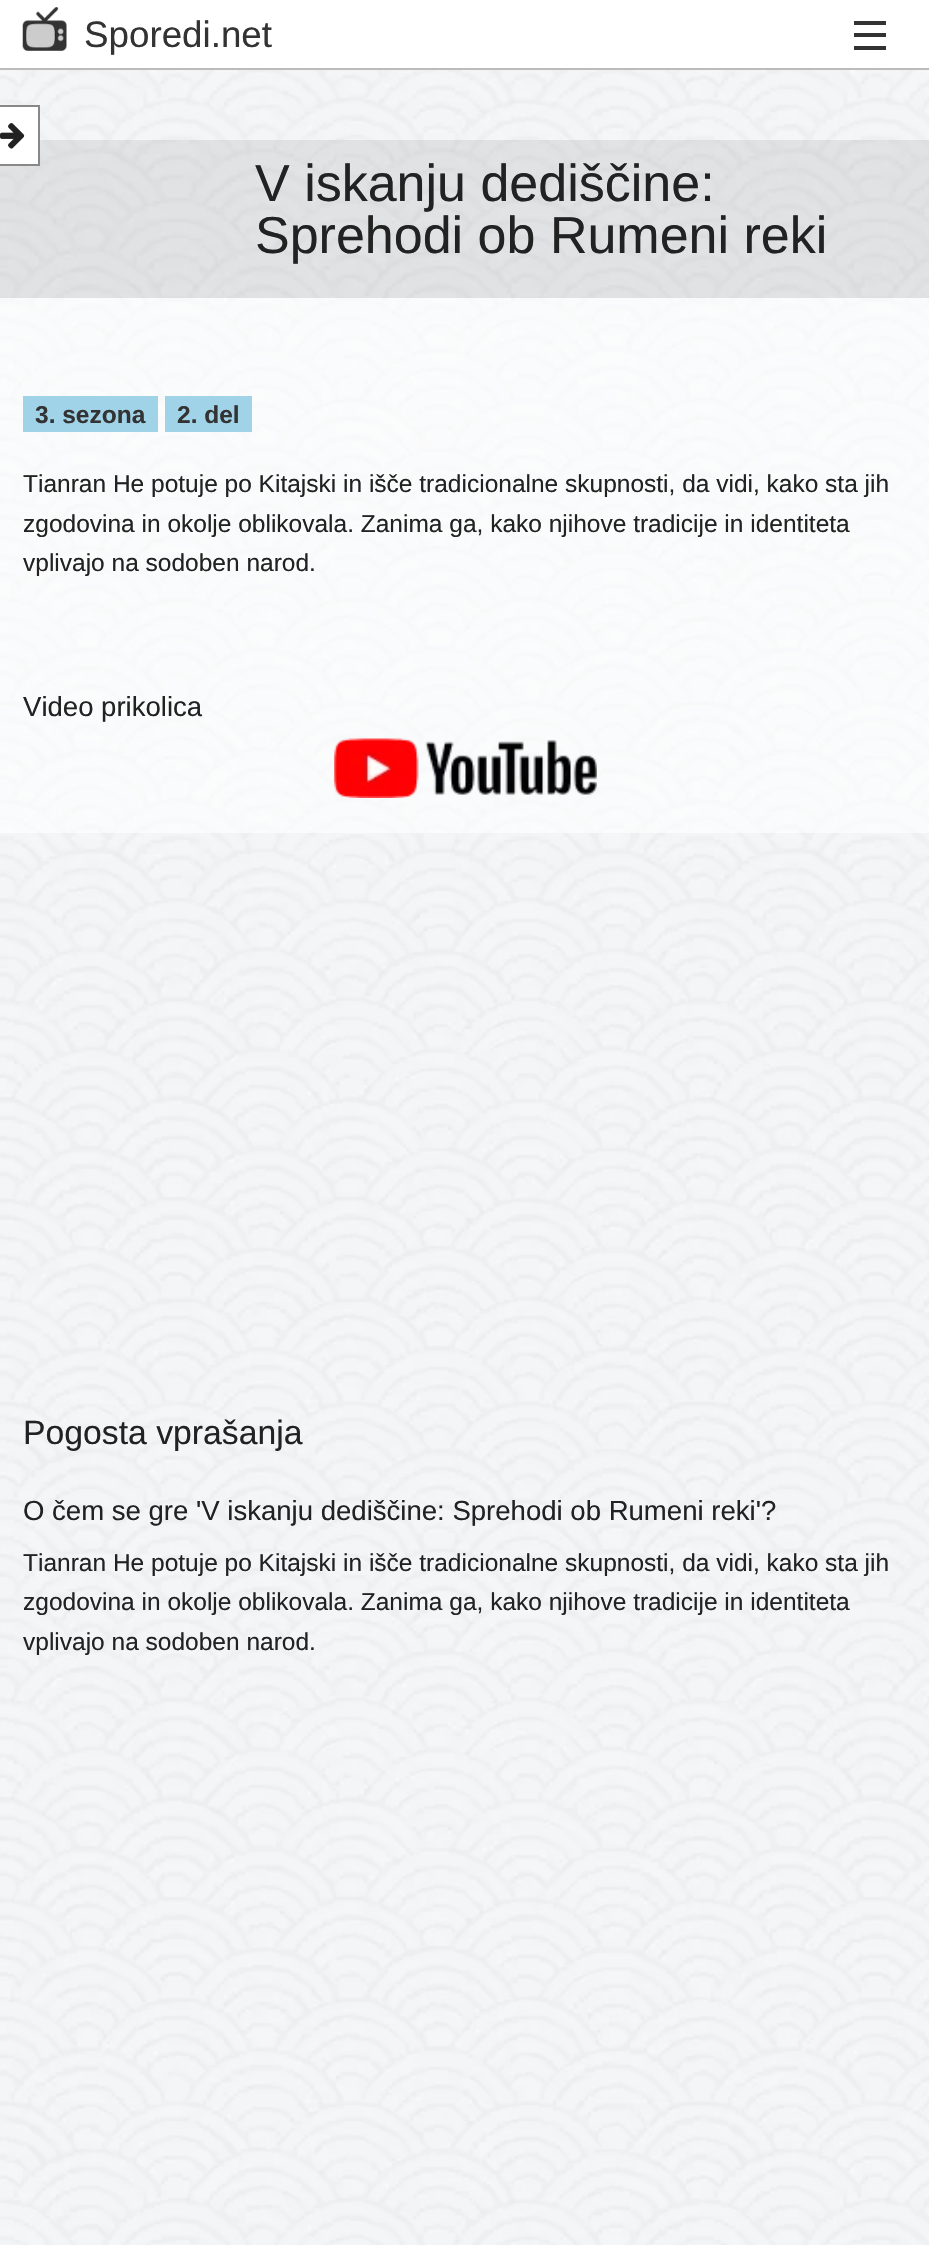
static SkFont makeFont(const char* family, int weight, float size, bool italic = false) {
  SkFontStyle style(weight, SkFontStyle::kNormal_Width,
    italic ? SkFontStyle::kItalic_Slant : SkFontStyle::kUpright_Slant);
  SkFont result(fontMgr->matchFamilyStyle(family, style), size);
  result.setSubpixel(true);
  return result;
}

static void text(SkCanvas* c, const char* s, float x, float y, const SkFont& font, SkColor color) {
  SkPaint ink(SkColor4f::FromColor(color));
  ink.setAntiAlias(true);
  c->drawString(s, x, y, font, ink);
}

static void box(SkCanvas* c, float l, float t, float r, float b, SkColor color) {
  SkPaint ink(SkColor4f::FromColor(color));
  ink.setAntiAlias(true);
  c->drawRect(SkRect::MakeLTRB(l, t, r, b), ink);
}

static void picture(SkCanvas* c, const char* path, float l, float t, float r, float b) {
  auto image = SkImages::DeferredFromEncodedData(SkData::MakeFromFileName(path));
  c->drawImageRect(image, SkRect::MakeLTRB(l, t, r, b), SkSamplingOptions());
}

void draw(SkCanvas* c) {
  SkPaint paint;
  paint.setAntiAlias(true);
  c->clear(0xffffffff);
  picture(c, "img_01.png", 0, 70, 929, 2245);
  box(c, 0, 68, 929, 70, 0xffbbbbbb);
  picture(c, "img_02.png", 22, 7, 67, 51);
  SkFont face1 = makeFont("Liberation Sans", 400, 36.75f);
  text(c, "Sporedi.net", 84, 47, face1, 0xff333333);
  box(c, 854, 46, 886, 50, 0xff333333);
  box(c, 854, 33, 886, 37, 0xff333333);
  box(c, 854, 21, 886, 25, 0xff333333);
  box(c, 0, 140, 929, 298, 0x33969696);
  paint.setColor(0xffffffff);
  c->drawRect(SkRect::MakeLTRB(-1, 106, 39, 165), paint);
  paint.setStyle(SkPaint::kStroke_Style);
  paint.setStrokeWidth(2);
  paint.setColor(0xff888888);
  c->drawRect(SkRect::MakeLTRB(-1, 106, 39, 165), paint);
  picture(c, "img_03.png", 0, 123, 25, 149);
  SkFont face2 = makeFont("Liberation Sans", 400, 52);
  text(c, "V iskanju dediščine:", 255, 201, face2, 0xff222222);
  text(c, "Sprehodi ob Rumeni reki", 255, 253, face2, 0xff222222);
  box(c, 0, 298, 929, 630, 0x99ffffff);
  box(c, 23, 396, 158, 432, 0xffa0d3e8);
  SkFont face3 = makeFont("Liberation Sans", 700, 24.5f);
  text(c, "3. sezona", 35, 423, face3, 0xff333333);
  box(c, 165, 396, 252, 432, 0xffa0d3e8);
  text(c, "2. del", 177, 423, face3, 0xff333333);
  SkFont face4 = makeFont("Liberation Sans", 400, 24.5f);
  text(c, "Tianran He potuje po Kitajski in išče tradicionalne skupnosti, da vidi, kako sta jih", 23, 492, face4, 0xff222222);
  text(c, "zgodovina in okolje oblikovala. Zanima ga, kako njihove tradicije in identiteta", 23, 532, face4, 0xff222222);
  text(c, "vplivajo na sodoben narod.", 23, 571, face4, 0xff222222);
  box(c, 0, 630, 929, 833, 0x99ffffff);
  SkFont face5 = makeFont("Liberation Sans", 400, 27.55f);
  text(c, "Video prikolica", 23, 716, face5, 0xff222222);
  picture(c, "img_04.png", 334, 738, 597, 798);
  SkFont face6 = makeFont("Liberation Sans", 400, 33.75f);
  text(c, "Pogosta vprašanja", 23, 1444, face6, 0xff222222);
  text(c, "O čem se gre 'V iskanju dediščine: Sprehodi ob Rumeni reki'?", 23, 1520, face5, 0xff222222);
  text(c, "Tianran He potuje po Kitajski in išče tradicionalne skupnosti, da vidi, kako sta jih", 23, 1571, face4, 0xff222222);
  text(c, "zgodovina in okolje oblikovala. Zanima ga, kako njihove tradicije in identiteta", 23, 1610, face4, 0xff222222);
  text(c, "vplivajo na sodoben narod.", 23, 1650, face4, 0xff222222);
}
